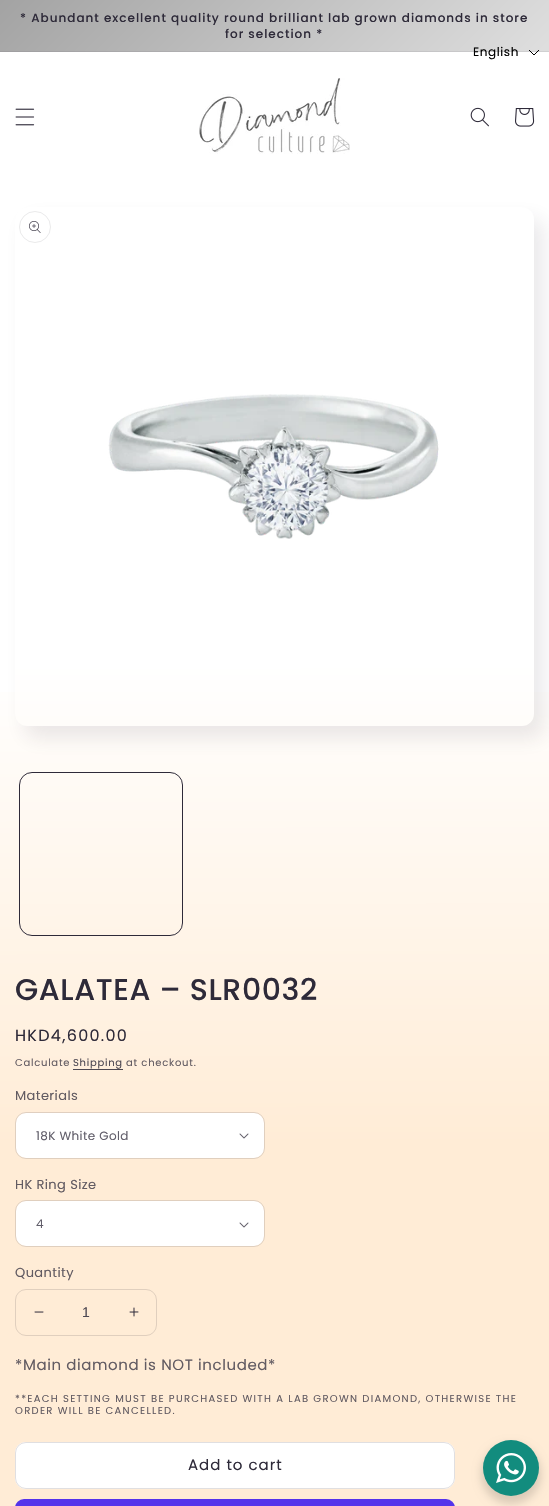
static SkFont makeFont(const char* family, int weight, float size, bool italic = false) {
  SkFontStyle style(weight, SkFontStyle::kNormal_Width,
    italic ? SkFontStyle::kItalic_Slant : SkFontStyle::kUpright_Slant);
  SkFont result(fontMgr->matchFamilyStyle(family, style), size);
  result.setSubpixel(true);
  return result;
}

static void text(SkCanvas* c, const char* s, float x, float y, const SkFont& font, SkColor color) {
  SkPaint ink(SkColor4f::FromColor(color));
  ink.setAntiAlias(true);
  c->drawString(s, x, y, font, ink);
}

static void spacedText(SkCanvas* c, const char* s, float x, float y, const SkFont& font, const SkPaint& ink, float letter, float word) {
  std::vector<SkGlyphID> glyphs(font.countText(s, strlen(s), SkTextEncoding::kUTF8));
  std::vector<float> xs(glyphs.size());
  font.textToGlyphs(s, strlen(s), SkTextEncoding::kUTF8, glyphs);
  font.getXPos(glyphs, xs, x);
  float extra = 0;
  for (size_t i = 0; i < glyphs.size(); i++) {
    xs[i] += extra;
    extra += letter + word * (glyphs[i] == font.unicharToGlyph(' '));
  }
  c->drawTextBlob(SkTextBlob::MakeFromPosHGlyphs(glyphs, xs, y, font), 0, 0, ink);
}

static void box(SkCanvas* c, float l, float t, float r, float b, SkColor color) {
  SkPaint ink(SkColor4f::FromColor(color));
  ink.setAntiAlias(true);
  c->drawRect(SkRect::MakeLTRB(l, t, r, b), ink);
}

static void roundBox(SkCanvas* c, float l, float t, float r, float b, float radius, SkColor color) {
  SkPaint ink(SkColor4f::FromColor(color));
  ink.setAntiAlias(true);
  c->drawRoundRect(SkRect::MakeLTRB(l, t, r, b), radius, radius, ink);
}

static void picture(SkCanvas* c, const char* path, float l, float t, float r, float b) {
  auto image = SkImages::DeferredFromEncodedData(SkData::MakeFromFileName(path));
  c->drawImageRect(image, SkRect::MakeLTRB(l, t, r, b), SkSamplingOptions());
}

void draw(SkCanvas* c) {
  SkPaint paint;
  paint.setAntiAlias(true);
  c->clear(0xffffffff);
  {
    const SkColor colors[] = {0xffffffff, 0xffffffff, 0xffffecd6};
    const float stops[] = {0, 0.44f, 0.76f};
    const SkPoint ends[] = {{274, 0}, {275, 1506}};
    paint.setShader(SkGradientShader::MakeLinear(ends, colors, stops, 3, SkTileMode::kClamp));
    paint.setAlpha(255);
  }
  c->drawRect(SkRect::MakeLTRB(0, 692, 549, 1506), paint);
  {
    const SkColor colors[] = {0xffa3a3a3, 0xffffffff, 0xffffffff, 0xffa3a3a3};
    const float stops[] = {0, 0.45f, 0.55f, 1};
    const SkPoint ends[] = {{-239, 239}, {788, 1267}};
    paint.setShader(SkGradientShader::MakeLinear(ends, colors, stops, 4, SkTileMode::kClamp));
    paint.setAlpha(255);
  }
  c->drawRect(SkRect::MakeLTRB(0, 0, 549, 51), paint);
  {
    const SkColor colors[] = {0xff9a999b, 0xffeeeeef, 0xffeeeeef, 0xff9a999b};
    const float stops[] = {0, 0.45f, 0.55f, 1};
    const SkPoint ends[] = {{-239, 239}, {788, 1267}};
    paint.setShader(SkGradientShader::MakeLinear(ends, colors, stops, 4, SkTileMode::kClamp));
    paint.setAlpha(255);
  }
  c->drawRect(SkRect::MakeLTRB(0, 51, 549, 52), paint);
  SkFont face1 = makeFont("Poppins", 500, 12);
  paint.setShader(nullptr);
  paint.setColor(0xff2e2a39);
  spacedText(c, "* Abundant excellent quality round brilliant lab grown diamonds in store", 20, 22, face1, paint, 1, 0);
  spacedText(c, "for selection *", 225, 38, face1, paint, 1, 0);
  SkFont face2 = makeFont("Poppins", 400, 12);
  paint.setColor(0xff000000);
  spacedText(c, "English", 473, 56, face2, paint, 0.6f, 0);
  paint.setStyle(SkPaint::kStroke_Style);
  paint.setStrokeWidth(1);
  c->drawPath(SkPathBuilder().moveTo(529, 50).lineTo(534, 55).lineTo(539, 50).detach(), paint);
  picture(c, "img_01.png", 15, 108, 35, 126);
  picture(c, "img_02.png", 199, 78, 350, 154);
  picture(c, "img_03.png", 470, 107, 489, 127);
  picture(c, "img_04.png", 515, 108, 535, 127);
  paint.setStyle(SkPaint::kFill_Style);
  paint.setColor(0x1a2e2a39);
  paint.setMaskFilter(SkMaskFilter::MakeBlur(kNormal_SkBlurStyle, 10));
  c->drawRoundRect(SkRect::MakeLTRB(25, 219, 544, 738), 12, 12, paint);
  paint.setMaskFilter(nullptr);
  {
    const SkColor colors[] = {0xffffffff, 0xffffffff, 0xffffecd6};
    const float stops[] = {0, 0.44f, 0.76f};
    const SkPoint ends[] = {{274, 0}, {275, 1506}};
    paint.setShader(SkGradientShader::MakeLinear(ends, colors, stops, 3, SkTileMode::kClamp));
    paint.setAlpha(255);
  }
  c->drawRoundRect(SkRect::MakeLTRB(15, 207, 534, 726), 12, 12, paint);
  picture(c, "img_05.png", 108, 394, 439, 539);
  paint.setStyle(SkPaint::kStroke_Style);
  paint.setShader(nullptr);
  paint.setColor(0xffeaeaeb);
  c->drawCircle(35, 227, 15.5f, paint);
  picture(c, "img_06.png", 29, 221, 41, 233);
  paint.setColor(0xff2e2a39);
  c->drawRoundRect(SkRect::MakeLTRB(19.5f, 772.5f, 182.5f, 935.5f), 12.5f, 12.5f, paint);
  SkFont face3 = makeFont("Poppins", 500, 30);
  paint.setStyle(SkPaint::kFill_Style);
  spacedText(c, "GALATEA – SLR0032", 15, 1000, face3, paint, 0.6f, 0);
  SkFont face4 = makeFont("Poppins", 400, 16);
  spacedText(c, "HKD4,600.00", 15, 1041, face4, paint, 1.3f, 0);
  SkFont face5 = makeFont("Poppins", 400, 10);
  paint.setColor(0xff625b62);
  spacedText(c, "Calculate", 15, 1066, face5, paint, 0.75f, 0);
  paint.setColor(0xff4d4852);
  spacedText(c, "Shipping", 73, 1066, face5, paint, 0.75f, 0);
  box(c, 73, 1069, 123, 1070, 0xff4d4851);
  paint.setColor(0xff625b62);
  spacedText(c, "at checkout.", 126, 1066, face5, paint, 0.75f, 0);
  SkFont face6 = makeFont("Poppins", 400, 13);
  spacedText(c, "Materials", 15, 1100, face6, paint, 0.4f, 0);
  roundBox(c, 16, 1113, 264, 1158, 10, 0xffffffff);
  picture(c, "img_07.png", 239, 1133, 249, 1139);
  paint.setStyle(SkPaint::kStroke_Style);
  paint.setColor(0x262e2a39);
  c->drawRoundRect(SkRect::MakeLTRB(15.5f, 1112.5f, 264.5f, 1158.5f), 10.5f, 10.5f, paint);
  paint.setStyle(SkPaint::kFill_Style);
  paint.setColor(0xff625f6b);
  spacedText(c, "18K White Gold", 36, 1140, face2, paint, 0.4f, 0);
  paint.setColor(0xff625b62);
  spacedText(c, "HK Ring Size", 15, 1189, face6, paint, 0.4f, 0);
  roundBox(c, 16, 1201, 264, 1246, 10, 0xffffffff);
  picture(c, "img_07.png", 239, 1222, 249, 1228);
  paint.setStyle(SkPaint::kStroke_Style);
  paint.setColor(0x262e2a39);
  c->drawRoundRect(SkRect::MakeLTRB(15.5f, 1200.5f, 264.5f, 1246.5f), 10.5f, 10.5f, paint);
  paint.setStyle(SkPaint::kFill_Style);
  paint.setColor(0xff625f6b);
  spacedText(c, "4", 36, 1228, face2, paint, 0.4f, 0);
  paint.setColor(0xff625b62);
  spacedText(c, "Quantity", 15, 1277, face6, paint, 0.4f, 0);
  picture(c, "img_08.png", 34, 1311, 44, 1313);
  picture(c, "img_09.png", 129, 1307, 139, 1317);
  paint.setStyle(SkPaint::kStroke_Style);
  paint.setColor(0xffe0cfbe);
  c->drawRoundRect(SkRect::MakeLTRB(15.5f, 1289.5f, 156.5f, 1335.5f), 10.5f, 10.5f, paint);
  SkFont face7 = makeFont("Liberation Sans", 400, 14);
  text(c, "1", 82, 1317, face7, 0xff4d4852);
  SkFont face8 = makeFont("Poppins", 400, 15);
  paint.setStyle(SkPaint::kFill_Style);
  paint.setColor(0xff625b62);
  spacedText(c, "*Main diamond is NOT included*", 15, 1370, face8, paint, 0.6f, 0);
  spacedText(c, "**EACH SETTING MUST BE PURCHASED WITH A LAB GROWN DIAMOND, OTHERWISE THE", 15, 1402, face5, paint, 1.3f, 0);
  spacedText(c, "ORDER WILL BE CANCELLED.", 15, 1414, face5, paint, 1.3f, 0);
  roundBox(c, 15, 1442, 455, 1489, 11, 0xffffffff);
  paint.setStyle(SkPaint::kStroke_Style);
  paint.setColor(0xffffffff);
  c->drawRoundRect(SkRect::MakeLTRB(15.5f, 1442.5f, 454.5f, 1488.5f), 10.5f, 10.5f, paint);
  paint.setColor(0x262e2a39);
  c->drawRoundRect(SkRect::MakeLTRB(15.5f, 1442.5f, 454.5f, 1488.5f), 10.5f, 10.5f, paint);
  paint.setStyle(SkPaint::kFill_Style);
  paint.setColor(0xff2e2a39);
  spacedText(c, "Add to cart", 188, 1470, face8, paint, 1, 0);
  roundBox(c, 15, 1499, 455, 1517, 11, 0xff5433eb);
  paint.setColor(0x24000000);
  paint.setMaskFilter(SkMaskFilter::MakeBlur(kNormal_SkBlurStyle, 4));
  c->drawRoundRect(SkRect::MakeLTRB(481, 1444, 541, 1504), 30, 30, paint);
  paint.setMaskFilter(nullptr);
  paint.setColor(0xff128c7e);
  c->drawCircle(511, 1468, 28, paint);
  picture(c, "img_10.png", 496, 1453, 526, 1483);
}
